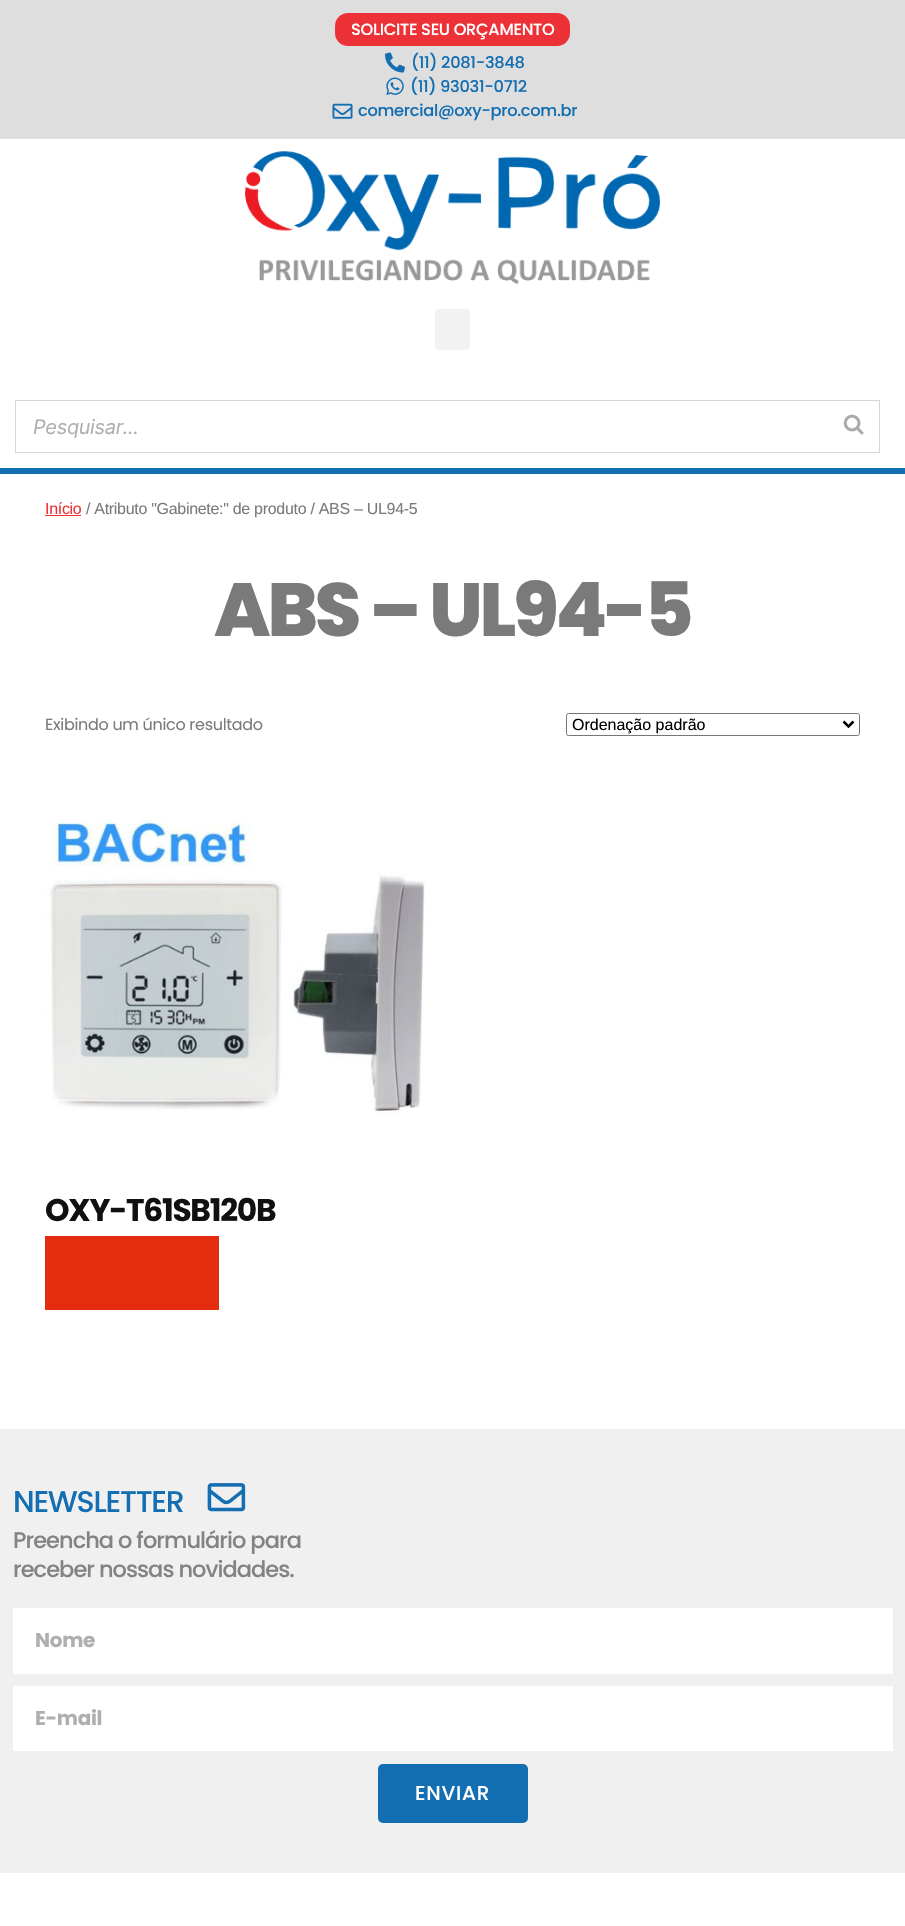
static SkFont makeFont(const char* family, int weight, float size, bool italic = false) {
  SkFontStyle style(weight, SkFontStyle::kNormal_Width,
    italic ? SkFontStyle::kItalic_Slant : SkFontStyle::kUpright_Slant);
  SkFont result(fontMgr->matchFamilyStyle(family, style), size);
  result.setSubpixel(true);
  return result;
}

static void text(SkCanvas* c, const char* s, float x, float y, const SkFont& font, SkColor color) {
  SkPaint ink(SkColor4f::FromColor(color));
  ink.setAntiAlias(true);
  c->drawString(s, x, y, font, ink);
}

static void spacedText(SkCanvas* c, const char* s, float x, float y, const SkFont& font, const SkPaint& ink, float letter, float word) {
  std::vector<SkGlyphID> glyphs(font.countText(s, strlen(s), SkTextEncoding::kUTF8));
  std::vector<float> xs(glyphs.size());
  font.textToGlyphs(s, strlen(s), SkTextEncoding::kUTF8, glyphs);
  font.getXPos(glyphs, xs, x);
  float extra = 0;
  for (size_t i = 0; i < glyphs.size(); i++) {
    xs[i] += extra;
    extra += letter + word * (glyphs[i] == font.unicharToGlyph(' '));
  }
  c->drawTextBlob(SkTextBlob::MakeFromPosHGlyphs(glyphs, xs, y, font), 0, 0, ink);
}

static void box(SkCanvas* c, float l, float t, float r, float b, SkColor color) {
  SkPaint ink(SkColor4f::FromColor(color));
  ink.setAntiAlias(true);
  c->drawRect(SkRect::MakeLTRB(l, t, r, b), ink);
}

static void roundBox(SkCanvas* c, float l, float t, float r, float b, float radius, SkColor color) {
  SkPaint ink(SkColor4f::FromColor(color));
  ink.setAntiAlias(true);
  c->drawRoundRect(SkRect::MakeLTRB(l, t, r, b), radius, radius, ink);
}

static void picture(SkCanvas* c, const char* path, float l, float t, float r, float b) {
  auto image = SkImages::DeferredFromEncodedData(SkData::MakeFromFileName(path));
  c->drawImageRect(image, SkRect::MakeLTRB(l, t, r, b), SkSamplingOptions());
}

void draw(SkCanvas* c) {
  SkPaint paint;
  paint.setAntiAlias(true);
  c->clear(0xffffffff);
  box(c, 0, 0, 905, 139, 0xffdedede);
  roundBox(c, 335, 13, 570, 46, 13, 0xffed3237);
  SkFont face1 = makeFont("Poppins", 500, 16.25f);
  paint.setColor(0xffffffff);
  spacedText(c, "SOLICITE SEU ORÇAMENTO", 351, 35, face1, paint, -0.3f, 0);
  picture(c, "img_01.png", 385, 52, 405, 73);
  paint.setColor(0xff136eb2);
  spacedText(c, "(11) 2081-3848", 411, 68, face1, paint, -0.3f, 0);
  picture(c, "img_02.png", 386, 77, 404, 95);
  spacedText(c, "(11) 93031-0712", 410, 92, face1, paint, -0.3f, 0);
  picture(c, "img_03.png", 332, 103, 353, 119);
  spacedText(c, "comercial@oxy-pro.com.br", 358, 116, face1, paint, -0.3f, 0);
  box(c, 0, 468, 905, 474, 0xff136eb2);
  picture(c, "img_04.png", 245, 151, 660, 284);
  roundBox(c, 435, 309, 470, 350, 4, 0xfff2f2f2);
  paint.setStyle(SkPaint::kStroke_Style);
  paint.setStrokeWidth(1);
  paint.setColor(0xffd6d6d6);
  c->drawRect(SkRect::MakeLTRB(15.5f, 400.5f, 879.5f, 452.5f), paint);
  SkFont face2 = makeFont("Inter", 400, 20, true);
  paint.setStyle(SkPaint::kFill_Style);
  paint.setColor(0xffafafaf);
  spacedText(c, "Pesquisar...", 33, 434, face2, paint, -0.3f, 0);
  picture(c, "img_05.png", 843, 414, 864, 435);
  SkFont face3 = makeFont("Liberation Sans", 400, 16);
  paint.setColor(0xffed3237);
  spacedText(c, "Início", 45, 514, face3, paint, -0.3f, 0);
  box(c, 45, 515, 81, 516, 0xffed3237);
  paint.setColor(0xff7a7a7a);
  spacedText(c, "/ Atributo \"Gabinete:\" de produto / ABS – UL94-5", 86, 514, face3, paint, -0.3f, 0);
  SkFont face4 = makeFont("Poppins", 800, 75);
  spacedText(c, "ABS – UL94-5", 214, 636, face4, paint, -3.1f, 0);
  SkFont face5 = makeFont("Poppins", 400, 16);
  spacedText(c, "Exibindo um único resultado", 45, 730, face5, paint, -0.3f, 0);
  paint.setStyle(SkPaint::kStroke_Style);
  paint.setColor(0xff767676);
  c->drawRoundRect(SkRect::MakeLTRB(566.5f, 713.5f, 859.5f, 735.5f), 2, 2, paint);
  paint.setStrokeWidth(2.5f);
  paint.setColor(0xff000000);
  c->drawPath(SkPathBuilder().moveTo(843.5f, 721.5f).lineTo(848.5f, 726.5f).lineTo(853.5f, 721.5f).detach(), paint);
  text(c, "Ordenação padrão", 572, 730, face3, 0xff000000);
  picture(c, "img_06.png", 45, 817, 425, 1115);
  SkFont face6 = makeFont("Poppins", 700, 31.25f);
  paint.setStyle(SkPaint::kFill_Style);
  paint.setColor(0xff111111);
  spacedText(c, "OXY-T61SB120B", 45, 1221, face6, paint, -1.25f, 0);
  box(c, 45, 1236, 219, 1310, 0xffe42c0f);
  box(c, 0, 1429, 905, 1873, 0xfff0f0f0);
  SkFont face7 = makeFont("Poppins", 500, 30);
  paint.setColor(0xff136eb2);
  spacedText(c, "NEWSLETTER", 13, 1512, face7, paint, -1.25f, 0);
  picture(c, "img_07.png", 207, 1483, 246, 1512);
  SkFont face8 = makeFont("Poppins", 500, 22.5f);
  paint.setColor(0xff838383);
  spacedText(c, "Preencha o formulário para", 13, 1548, face8, paint, -0.95f, 0);
  spacedText(c, "receber nossas novidades.", 13, 1577, face8, paint, -0.95f, 0);
  box(c, 13, 1608, 893, 1674, 0xffffffff);
  SkFont face9 = makeFont("Poppins", 700, 20);
  paint.setColor(0xffafafaf);
  spacedText(c, "Nome", 35, 1647, face9, paint, -0.3f, 0);
  box(c, 13, 1686, 893, 1751, 0xffffffff);
  spacedText(c, "E-mail", 35, 1725, face9, paint, -0.3f, 0);
  roundBox(c, 378, 1764, 528, 1823, 5, 0xff136fb2);
  SkFont face10 = makeFont("Poppins", 500, 20);
  paint.setColor(0xffffffff);
  spacedText(c, "ENVIAR", 415, 1800, face10, paint, 0.75f, 0);
}
